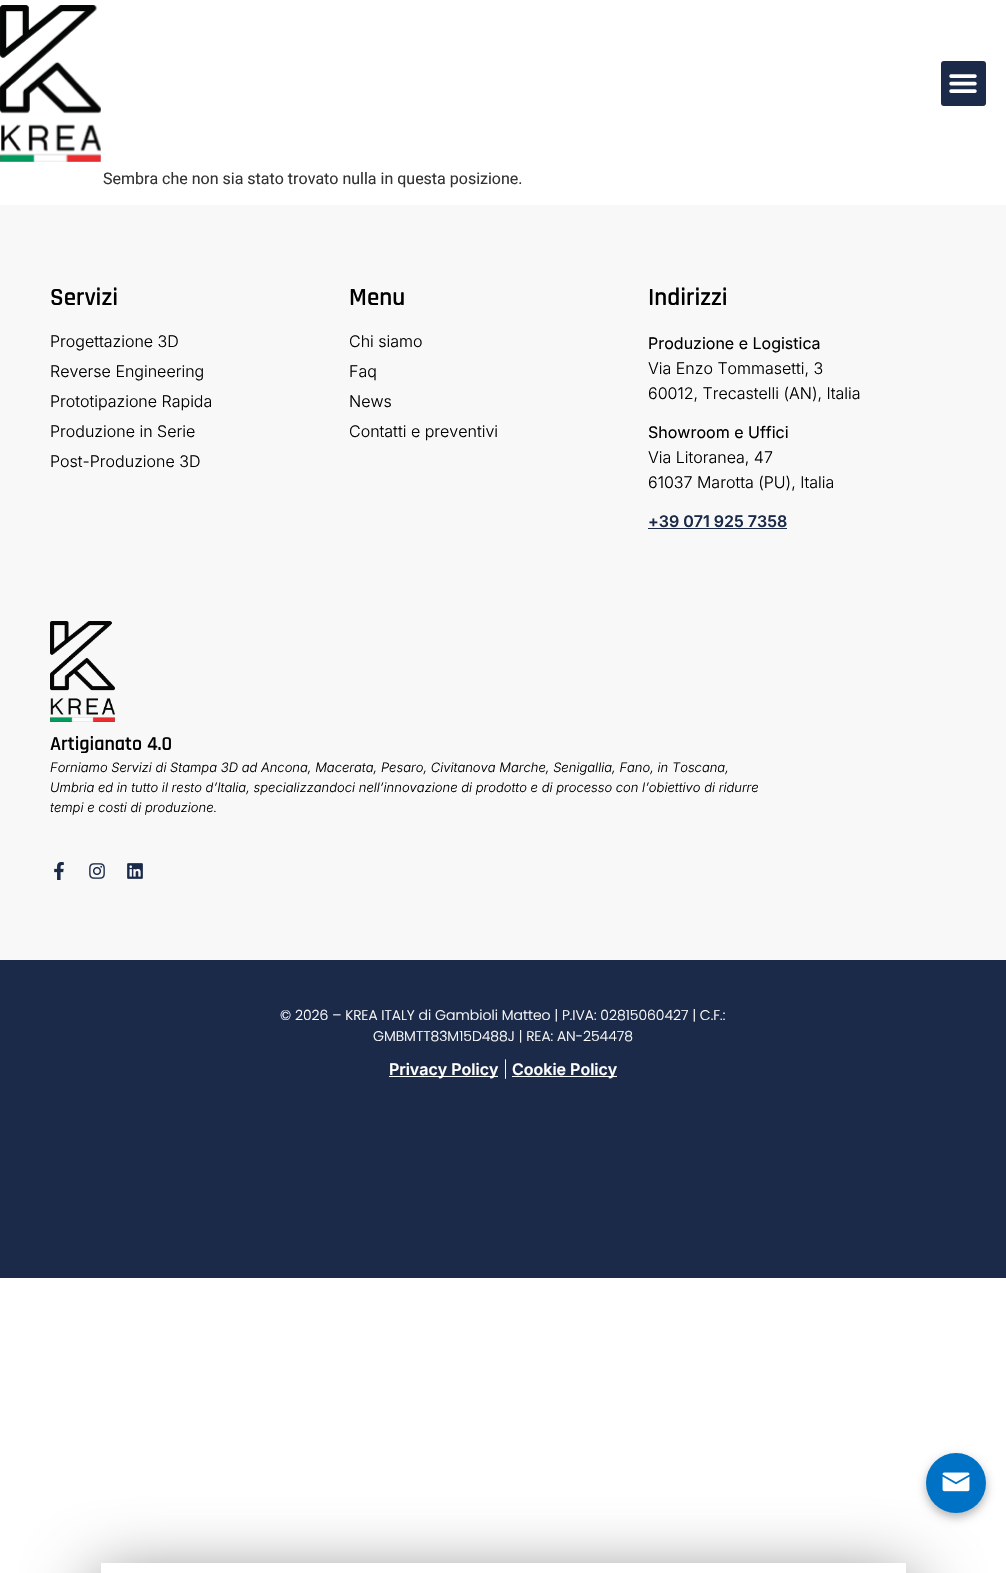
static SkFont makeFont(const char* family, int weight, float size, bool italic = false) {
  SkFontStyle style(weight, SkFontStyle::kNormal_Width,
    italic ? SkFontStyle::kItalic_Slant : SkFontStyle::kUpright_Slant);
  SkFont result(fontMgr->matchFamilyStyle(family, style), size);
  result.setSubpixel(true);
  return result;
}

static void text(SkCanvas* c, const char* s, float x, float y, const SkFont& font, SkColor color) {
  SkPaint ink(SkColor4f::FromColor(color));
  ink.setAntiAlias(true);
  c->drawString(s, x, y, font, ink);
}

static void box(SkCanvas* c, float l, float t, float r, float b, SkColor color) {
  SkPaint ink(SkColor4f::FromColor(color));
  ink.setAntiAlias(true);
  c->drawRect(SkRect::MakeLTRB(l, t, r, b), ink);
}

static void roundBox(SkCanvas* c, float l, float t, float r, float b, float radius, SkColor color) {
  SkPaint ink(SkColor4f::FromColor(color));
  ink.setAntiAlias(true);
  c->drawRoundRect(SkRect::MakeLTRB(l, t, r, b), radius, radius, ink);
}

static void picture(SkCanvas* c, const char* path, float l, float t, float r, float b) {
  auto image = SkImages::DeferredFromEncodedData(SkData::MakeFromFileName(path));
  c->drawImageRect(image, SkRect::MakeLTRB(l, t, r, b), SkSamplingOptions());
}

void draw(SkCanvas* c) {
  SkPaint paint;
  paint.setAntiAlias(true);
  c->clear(0xffffffff);
  picture(c, "img_01.png", 0, 5, 101, 162);
  roundBox(c, 941, 61, 986, 106, 3, 0xff1b2a49);
  picture(c, "img_02.png", 949, 74, 977, 93);
  SkFont face1 = makeFont("Roboto", 400, 16);
  text(c, "Sembra che non sia stato trovato nulla in questa posizione.", 103, 184, face1, 0xff333333);
  box(c, 0, 205, 1006, 960, 0xfff8f8f8);
  SkFont face2 = makeFont("Rajdhani", 600, 25);
  text(c, "Servizi", 50, 305, face2, 0xff000000);
  SkFont face3 = makeFont("Inter", 300, 16);
  text(c, "Progettazione 3D", 50, 347, face3, 0xff000000);
  text(c, "Reverse Engineering", 50, 377, face3, 0xff000000);
  text(c, "Prototipazione Rapida", 50, 407, face3, 0xff000000);
  text(c, "Produzione in Serie", 50, 437, face3, 0xff000000);
  text(c, "Post-Produzione 3D", 50, 467, face3, 0xff000000);
  text(c, "Menu", 349, 305, face2, 0xff000000);
  text(c, "Chi siamo", 349, 347, face3, 0xff000000);
  text(c, "Faq", 349, 377, face3, 0xff000000);
  text(c, "News", 349, 407, face3, 0xff000000);
  text(c, "Contatti e preventivi", 349, 437, face3, 0xff000000);
  text(c, "Indirizzi", 648, 305, face2, 0xff000000);
  SkFont face4 = makeFont("Inter", 400, 16);
  text(c, "Produzione e Logistica", 648, 349, face4, 0xff000000);
  text(c, "Via Enzo Tommasetti, 3", 648, 374, face3, 0xff000000);
  text(c, "60012, Trecastelli (AN), Italia", 648, 399, face3, 0xff000000);
  text(c, "Showroom e Uffici", 648, 438, face4, 0xff000000);
  text(c, "Via Litoranea, 47", 648, 463, face3, 0xff000000);
  text(c, "61037 Marotta (PU), Italia", 648, 488, face3, 0xff000000);
  SkFont face5 = makeFont("Inter", 600, 16);
  text(c, "+39 071 925 7358", 648, 527, face5, 0xff1b2a49);
  box(c, 648, 528, 787, 529, 0xff1b2a49);
  picture(c, "img_03.png", 50, 621, 115, 722);
  SkFont face6 = makeFont("Rajdhani", 600, 20);
  text(c, "Artigianato 4.0", 50, 750, face6, 0xff000000);
  SkFont face7 = makeFont("Inter", 300, 13, true);
  text(c, "Forniamo Servizi di Stampa 3D ad Ancona, Macerata, Pesaro, Civitanova Marche, Senigallia, Fano, in Toscana,", 50, 772, face7, 0xff000000);
  text(c, "Umbria ed in tutto il resto d’Italia, specializzandoci nell’innovazione di prodotto e di processo con l’obiettivo di ridurre", 50, 792, face7, 0xff000000);
  text(c, "tempi e costi di produzione.", 50, 812, face7, 0xff000000);
  picture(c, "img_04.png", 54, 862, 64, 880);
  picture(c, "img_05.png", 89, 863, 105, 879);
  picture(c, "img_06.png", 127, 863, 143, 879);
  box(c, 0, 960, 1006, 1278, 0xff1b2a49);
  SkFont face8 = makeFont("Poppins", 300, 14);
  text(c, "© 2026 – KREA ITALY di Gambioli Matteo | P.IVA: 02815060427 | C.F.:", 280, 1020, face8, 0xffffffff);
  text(c, "GMBMTT83M15D488J | REA: AN-254478", 373, 1041, face8, 0xffffffff);
  box(c, 389, 1076, 498, 1077, 0xffffffff);
  text(c, "Privacy Policy", 389, 1075, face5, 0xffffffff);
  text(c, "|", 503, 1075, face3, 0xffffffff);
  box(c, 512, 1076, 617, 1077, 0xffffffff);
  text(c, "Cookie Policy", 512, 1075, face5, 0xffffffff);
  paint.setColor(0x4d000000);
  paint.setMaskFilter(SkMaskFilter::MakeBlur(kNormal_SkBlurStyle, 5));
  c->drawRoundRect(SkRect::MakeLTRB(926, 1457, 986, 1517), 30, 30, paint);
  paint.setMaskFilter(nullptr);
  paint.setColor(0xff0072c6);
  c->drawCircle(956, 1483, 30, paint);
  picture(c, "img_07.png", 942, 1472, 970, 1492);
  paint.setColor(0x8f000000);
  paint.setMaskFilter(SkMaskFilter::MakeBlur(kNormal_SkBlurStyle, 35));
  c->drawRect(SkRect::MakeLTRB(97, 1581, 910, 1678), paint);
  paint.setMaskFilter(nullptr);
  box(c, 101, 1563, 906, 1573, 0xffffffff);
}
